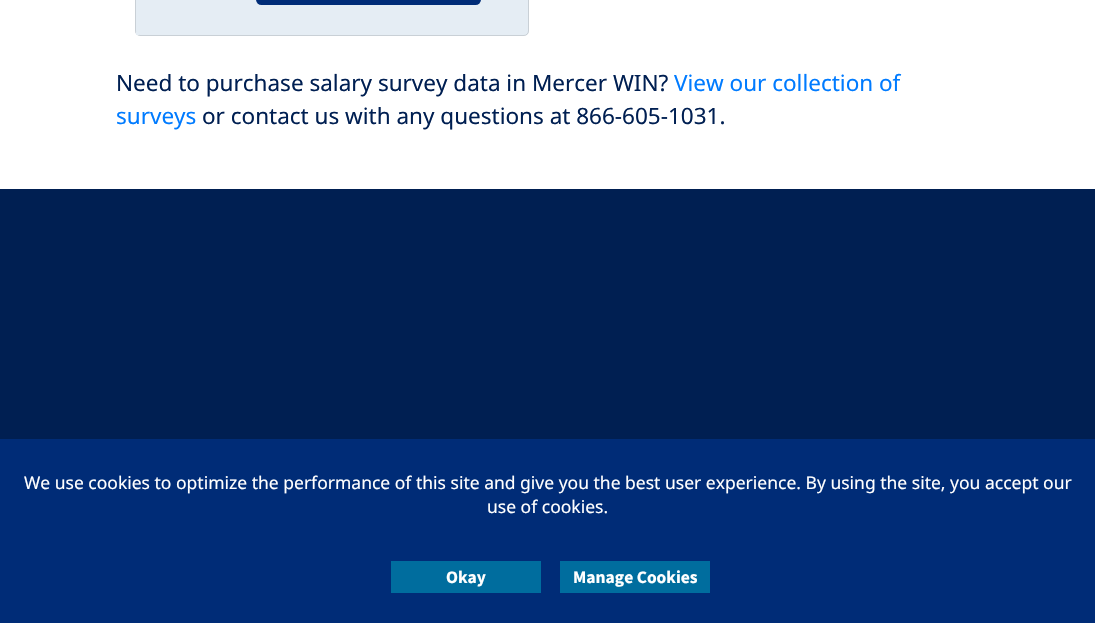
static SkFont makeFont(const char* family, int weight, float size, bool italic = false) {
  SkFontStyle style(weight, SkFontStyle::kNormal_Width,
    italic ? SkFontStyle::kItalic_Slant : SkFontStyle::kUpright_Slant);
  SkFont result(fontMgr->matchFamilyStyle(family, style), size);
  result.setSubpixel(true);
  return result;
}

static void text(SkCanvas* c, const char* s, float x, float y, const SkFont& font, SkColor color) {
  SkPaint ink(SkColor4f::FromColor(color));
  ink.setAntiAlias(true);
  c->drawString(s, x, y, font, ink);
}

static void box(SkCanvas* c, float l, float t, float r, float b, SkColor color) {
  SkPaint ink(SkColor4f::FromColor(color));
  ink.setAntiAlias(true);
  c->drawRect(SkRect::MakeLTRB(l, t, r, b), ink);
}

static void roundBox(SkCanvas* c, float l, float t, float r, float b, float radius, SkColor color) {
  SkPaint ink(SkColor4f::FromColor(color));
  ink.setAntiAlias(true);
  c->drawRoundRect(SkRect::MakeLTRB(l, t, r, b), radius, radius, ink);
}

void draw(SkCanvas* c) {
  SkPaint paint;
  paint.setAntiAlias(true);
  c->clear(0xffffffff);
  roundBox(c, 135, -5, 529, 36, 5, 0xffe5edf4);
  paint.setStyle(SkPaint::kStroke_Style);
  paint.setStrokeWidth(1);
  paint.setColor(0x1f000000);
  c->drawRoundRect(SkRect::MakeLTRB(135.5f, -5.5f, 528.5f, 35.5f), 4.5f, 4.5f, paint);
  roundBox(c, 256, -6, 481, 5, 6, 0xff002c77);
  box(c, 136, 32, 139, 35, 0xffe5edf4);
  SkFont face1 = makeFont("Noto Sans", 400, 22.5f);
  text(c, "Need to purchase salary survey data in Mercer WIN?", 116, 91, face1, 0xff001f52);
  text(c, "View our collection of", 674, 91, face1, 0xff007bff);
  text(c, "surveys", 116, 124, face1, 0xff007bff);
  text(c, "or contact us with any questions at 866-605-1031.", 202, 124, face1, 0xff001f52);
  box(c, 0, 189, 1095, 439, 0xff001f52);
  box(c, 0, 439, 1095, 623, 0xff002c77);
  SkFont face2 = makeFont("Noto Sans", 400, 17.5f);
  text(c, "We use cookies to optimize the performance of this site and give you the best user experience. By using the site, you accept our", 24, 489, face2, 0xffffffff);
  text(c, "use of cookies.", 487, 513, face2, 0xffffffff);
  box(c, 391, 561, 541, 593, 0xff006d9e);
  SkFont face3 = makeFont("Source Sans Pro", 700, 17.5f);
  text(c, "Okay", 446, 583, face3, 0xffffffff);
  box(c, 560, 561, 710, 593, 0xff006d9e);
  text(c, "Manage Cookies", 573, 583, face3, 0xffffffff);
}
